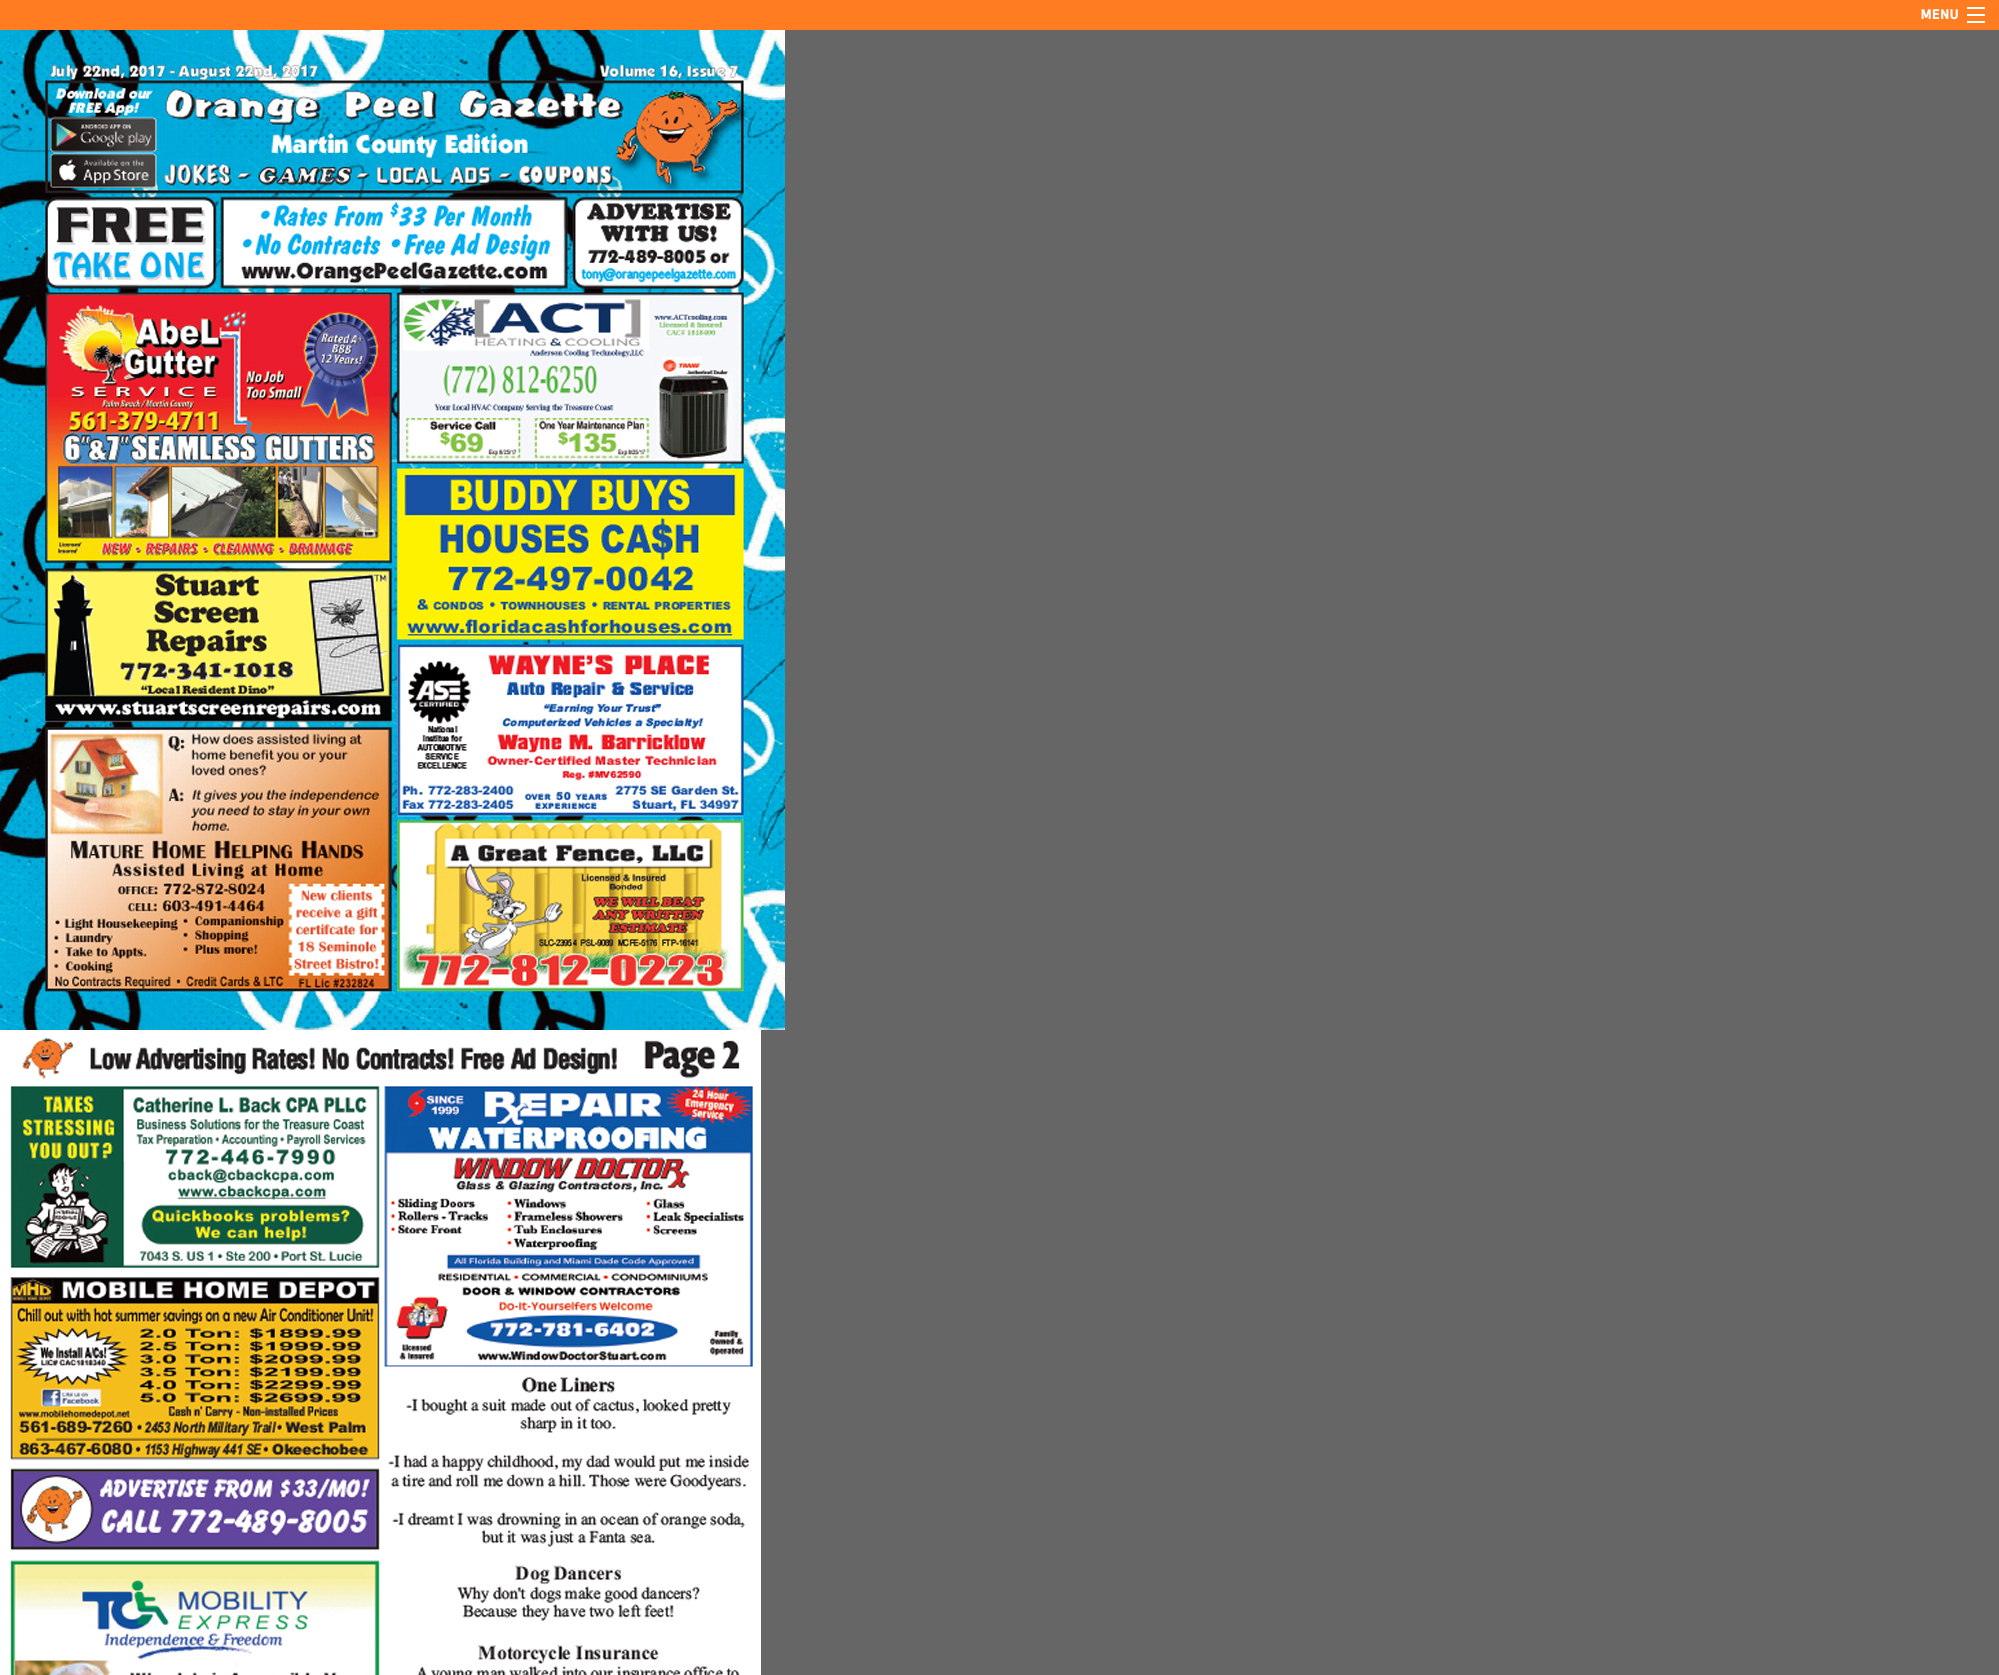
static void box(SkCanvas* c, float l, float t, float r, float b, SkColor color) {
  SkPaint ink(SkColor4f::FromColor(color));
  ink.setAntiAlias(true);
  c->drawRect(SkRect::MakeLTRB(l, t, r, b), ink);
}

static void picture(SkCanvas* c, const char* path, float l, float t, float r, float b) {
  auto image = SkImages::DeferredFromEncodedData(SkData::MakeFromFileName(path));
  c->drawImageRect(image, SkRect::MakeLTRB(l, t, r, b), SkSamplingOptions());
}

void draw(SkCanvas* c) {
  SkPaint paint;
  paint.setAntiAlias(true);
  c->clear(0xffff7c21);
  picture(c, "img_01.png", 1921, 9, 1958, 20);
  box(c, 1967, 21, 1985, 23, 0xffffffff);
  box(c, 1967, 14, 1985, 16, 0xffffffff);
  box(c, 1967, 7, 1985, 9, 0xffffffff);
  box(c, 761, 30, 1999, 1675, 0xff666666);
  picture(c, "img_02.png", 0, 30, 785, 1030);
  picture(c, "img_03.png", 0, 1030, 761, 1675);
}
